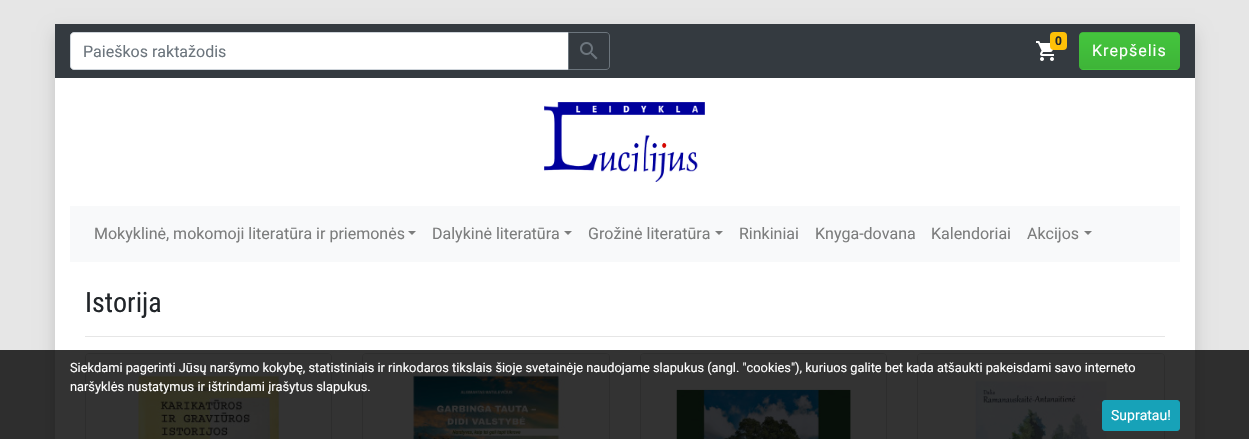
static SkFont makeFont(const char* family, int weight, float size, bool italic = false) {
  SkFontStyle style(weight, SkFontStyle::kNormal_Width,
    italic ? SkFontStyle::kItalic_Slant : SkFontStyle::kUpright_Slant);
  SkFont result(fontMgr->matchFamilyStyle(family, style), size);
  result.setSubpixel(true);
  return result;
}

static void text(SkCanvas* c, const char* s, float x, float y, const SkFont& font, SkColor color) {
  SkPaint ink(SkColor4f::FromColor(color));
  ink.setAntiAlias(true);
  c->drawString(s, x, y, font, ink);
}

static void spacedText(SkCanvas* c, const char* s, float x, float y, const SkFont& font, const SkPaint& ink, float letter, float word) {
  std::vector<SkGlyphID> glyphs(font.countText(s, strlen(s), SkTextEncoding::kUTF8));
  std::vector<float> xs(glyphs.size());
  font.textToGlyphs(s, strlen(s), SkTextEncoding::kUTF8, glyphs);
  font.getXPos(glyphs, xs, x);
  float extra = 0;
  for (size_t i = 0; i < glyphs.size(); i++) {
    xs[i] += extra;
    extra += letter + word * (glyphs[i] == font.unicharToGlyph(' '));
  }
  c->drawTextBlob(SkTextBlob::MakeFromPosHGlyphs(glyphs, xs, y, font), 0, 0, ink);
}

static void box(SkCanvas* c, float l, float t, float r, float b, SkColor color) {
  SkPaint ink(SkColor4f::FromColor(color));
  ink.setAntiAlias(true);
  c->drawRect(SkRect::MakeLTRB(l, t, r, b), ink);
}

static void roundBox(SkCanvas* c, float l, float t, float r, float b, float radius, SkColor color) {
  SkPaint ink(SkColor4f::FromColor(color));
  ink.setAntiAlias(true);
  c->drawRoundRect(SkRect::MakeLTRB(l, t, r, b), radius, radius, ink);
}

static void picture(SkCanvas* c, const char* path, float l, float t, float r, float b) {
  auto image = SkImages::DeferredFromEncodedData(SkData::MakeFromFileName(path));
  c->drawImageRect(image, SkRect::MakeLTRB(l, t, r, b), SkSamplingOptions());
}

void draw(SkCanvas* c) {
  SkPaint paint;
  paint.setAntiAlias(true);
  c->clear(0xffe6e6e6);
  paint.setColor(0x26000000);
  paint.setMaskFilter(SkMaskFilter::MakeBlur(kNormal_SkBlurStyle, 8));
  c->drawRect(SkRect::MakeLTRB(55, 32, 1195, 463), paint);
  paint.setMaskFilter(nullptr);
  box(c, 55, 78, 1195, 439, 0xffffffff);
  box(c, 55, 24, 1195, 78, 0xff343a40);
  paint.setColor(0xffffffff);
  c->drawPath(SkPathBuilder().moveTo(74, 32.5f).lineTo(568.5f, 32.5f).lineTo(568.5f, 69.5f).lineTo(74, 69.5f).cubicTo(72, 69.5f, 70.5f, 68, 70.5f, 66).lineTo(70.5f, 36).cubicTo(70.5f, 34, 72, 32.5f, 74, 32.5f).close().detach(), paint);
  paint.setStyle(SkPaint::kStroke_Style);
  paint.setStrokeWidth(1);
  paint.setColor(0xffced4da);
  c->drawPath(SkPathBuilder().moveTo(74, 32.5f).lineTo(568.5f, 32.5f).lineTo(568.5f, 69.5f).lineTo(74, 69.5f).cubicTo(72, 69.5f, 70.5f, 68, 70.5f, 66).lineTo(70.5f, 36).cubicTo(70.5f, 34, 72, 32.5f, 74, 32.5f).close().detach(), paint);
  SkFont face1 = makeFont("Roboto", 400, 16);
  text(c, "Paieškos raktažodis", 83, 57, face1, 0xff6c757d);
  paint.setColor(0xff6c757d);
  c->drawPath(SkPathBuilder().moveTo(568.5f, 32.5f).lineTo(606, 32.5f).cubicTo(608, 32.5f, 609.5f, 34, 609.5f, 36).lineTo(609.5f, 66).cubicTo(609.5f, 68, 608, 69.5f, 606, 69.5f).lineTo(568.5f, 69.5f).close().detach(), paint);
  picture(c, "img_01.png", 580, 42, 598, 60);
  picture(c, "img_02.png", 1036, 41, 1054, 61);
  roundBox(c, 1050, 32, 1067, 50, 4, 0xffffc107);
  SkFont face2 = makeFont("Roboto", 700, 12);
  text(c, "0", 1055, 45, face2, 0xff212529);
  c->save();
  c->clipPath(SkPathBuilder().moveTo(1083, 32).lineTo(1176, 32).cubicTo(1178, 32, 1180, 34, 1180, 36).lineTo(1180, 66).cubicTo(1180, 68, 1178, 70, 1176, 70).lineTo(1083, 70).cubicTo(1081, 70, 1079, 68, 1079, 66).lineTo(1079, 36).cubicTo(1079, 34, 1081, 32, 1083, 32).close().detach(), true);
  paint.setStyle(SkPaint::kFill_Style);
  {
    const SkColor colors[] = {0xff44c53d, 0xff3eb438};
    const float stops[] = {0, 1};
    const SkPoint ends[] = {{1130, -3}, {1130, 33}};
    paint.setShader(SkGradientShader::MakeLinear(ends, colors, stops, 2, SkTileMode::kClamp));
    paint.setAlpha(255);
  }
  c->drawRect(SkRect::MakeLTRB(1079, 32, 1180, 33), paint);
  {
    const SkColor colors[] = {0xff44c53d, 0xff3eb438};
    const float stops[] = {0, 1};
    const SkPoint ends[] = {{1130, 33}, {1130, 69}};
    paint.setShader(SkGradientShader::MakeLinear(ends, colors, stops, 2, SkTileMode::kClamp));
    paint.setAlpha(255);
  }
  c->drawRect(SkRect::MakeLTRB(1079, 33, 1180, 69), paint);
  {
    const SkColor colors[] = {0xff44c53d, 0xff3eb438};
    const float stops[] = {0, 1};
    const SkPoint ends[] = {{1130, 69}, {1130, 105}};
    paint.setShader(SkGradientShader::MakeLinear(ends, colors, stops, 2, SkTileMode::kClamp));
    paint.setAlpha(255);
  }
  c->drawRect(SkRect::MakeLTRB(1079, 69, 1180, 70), paint);
  c->restore();
  paint.setShader(nullptr);
  paint.setColor(0xffffffff);
  spacedText(c, "Krepšelis", 1092, 56, face1, paint, 1, 0);
  picture(c, "img_03.png", 544, 102, 705, 182);
  box(c, 70, 206, 1180, 262, 0xfff8f9fa);
  text(c, "Mokyklinė, mokomoji literatūra ir priemonės", 94, 239, face1, 0xff7c7d7d);
  paint.setColor(0xff7c7d7d);
  c->drawPath(SkPathBuilder().moveTo(408, 231).lineTo(416, 231).lineTo(412, 235).close().detach(), paint);
  text(c, "Dalykinė literatūra", 432, 239, face1, 0xff7c7d7d);
  c->drawPath(SkPathBuilder().moveTo(564, 231).lineTo(572, 231).lineTo(568, 235).close().detach(), paint);
  text(c, "Grožinė literatūra", 588, 239, face1, 0xff7c7d7d);
  c->drawPath(SkPathBuilder().moveTo(715, 231).lineTo(723, 231).lineTo(719, 235).close().detach(), paint);
  text(c, "Rinkiniai", 739, 239, face1, 0xff7c7d7d);
  text(c, "Knyga-dovana", 815, 239, face1, 0xff7c7d7d);
  text(c, "Kalendoriai", 931, 239, face1, 0xff7c7d7d);
  text(c, "Akcijos", 1027, 239, face1, 0xff7c7d7d);
  c->drawPath(SkPathBuilder().moveTo(1084, 231).lineTo(1092, 231).lineTo(1088, 235).close().detach(), paint);
  SkFont face3 = makeFont("Roboto Condensed", 400, 28);
  text(c, "Istorija", 85, 312, face3, 0xff212529);
  box(c, 85, 336, 1165, 337, 0xffe6e6e6);
  paint.setStyle(SkPaint::kStroke_Style);
  paint.setColor(0xffdfdfdf);
  c->drawRoundRect(SkRect::MakeLTRB(85.5f, 353.5f, 331.5f, 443.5f), 3.5f, 3.5f, paint);
  picture(c, "img_04.png", 86, 354, 331, 439);
  c->drawRoundRect(SkRect::MakeLTRB(362.5f, 353.5f, 609.5f, 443.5f), 3.5f, 3.5f, paint);
  picture(c, "img_05.png", 363, 354, 609, 439);
  c->drawRoundRect(SkRect::MakeLTRB(640.5f, 353.5f, 886.5f, 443.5f), 3.5f, 3.5f, paint);
  picture(c, "img_06.png", 641, 354, 886, 439);
  c->drawRoundRect(SkRect::MakeLTRB(917.5f, 353.5f, 1164.5f, 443.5f), 3.5f, 3.5f, paint);
  picture(c, "img_07.png", 918, 354, 1164, 439);
  box(c, 0, 350, 1249, 439, 0xcc000000);
  SkFont face4 = makeFont("Roboto", 400, 12.8f);
  text(c, "Siekdami pagerinti Jūsų naršymo kokybę, statistiniais ir rinkodaros tikslais šioje svetainėje naudojame slapukus (angl. \"cookies\"), kuriuos galite bet kada atšaukti pakeisdami savo interneto", 70, 372, face4, 0xffffffff);
  text(c, "naršyklės nustatymus ir ištrindami įrašytus slapukus.", 70, 391, face4, 0xffffffff);
  paint.setStyle(SkPaint::kFill_Style);
  paint.setColor(0xff17a2b8);
  c->drawRoundRect(SkRect::MakeLTRB(1102.5f, 400.5f, 1179.5f, 430.5f), 2.5f, 2.5f, paint);
  paint.setStyle(SkPaint::kStroke_Style);
  c->drawRoundRect(SkRect::MakeLTRB(1102.5f, 400.5f, 1179.5f, 430.5f), 2.5f, 2.5f, paint);
  SkFont face5 = makeFont("Roboto", 400, 14);
  text(c, "Supratau!", 1111, 420, face5, 0xffffffff);
}
